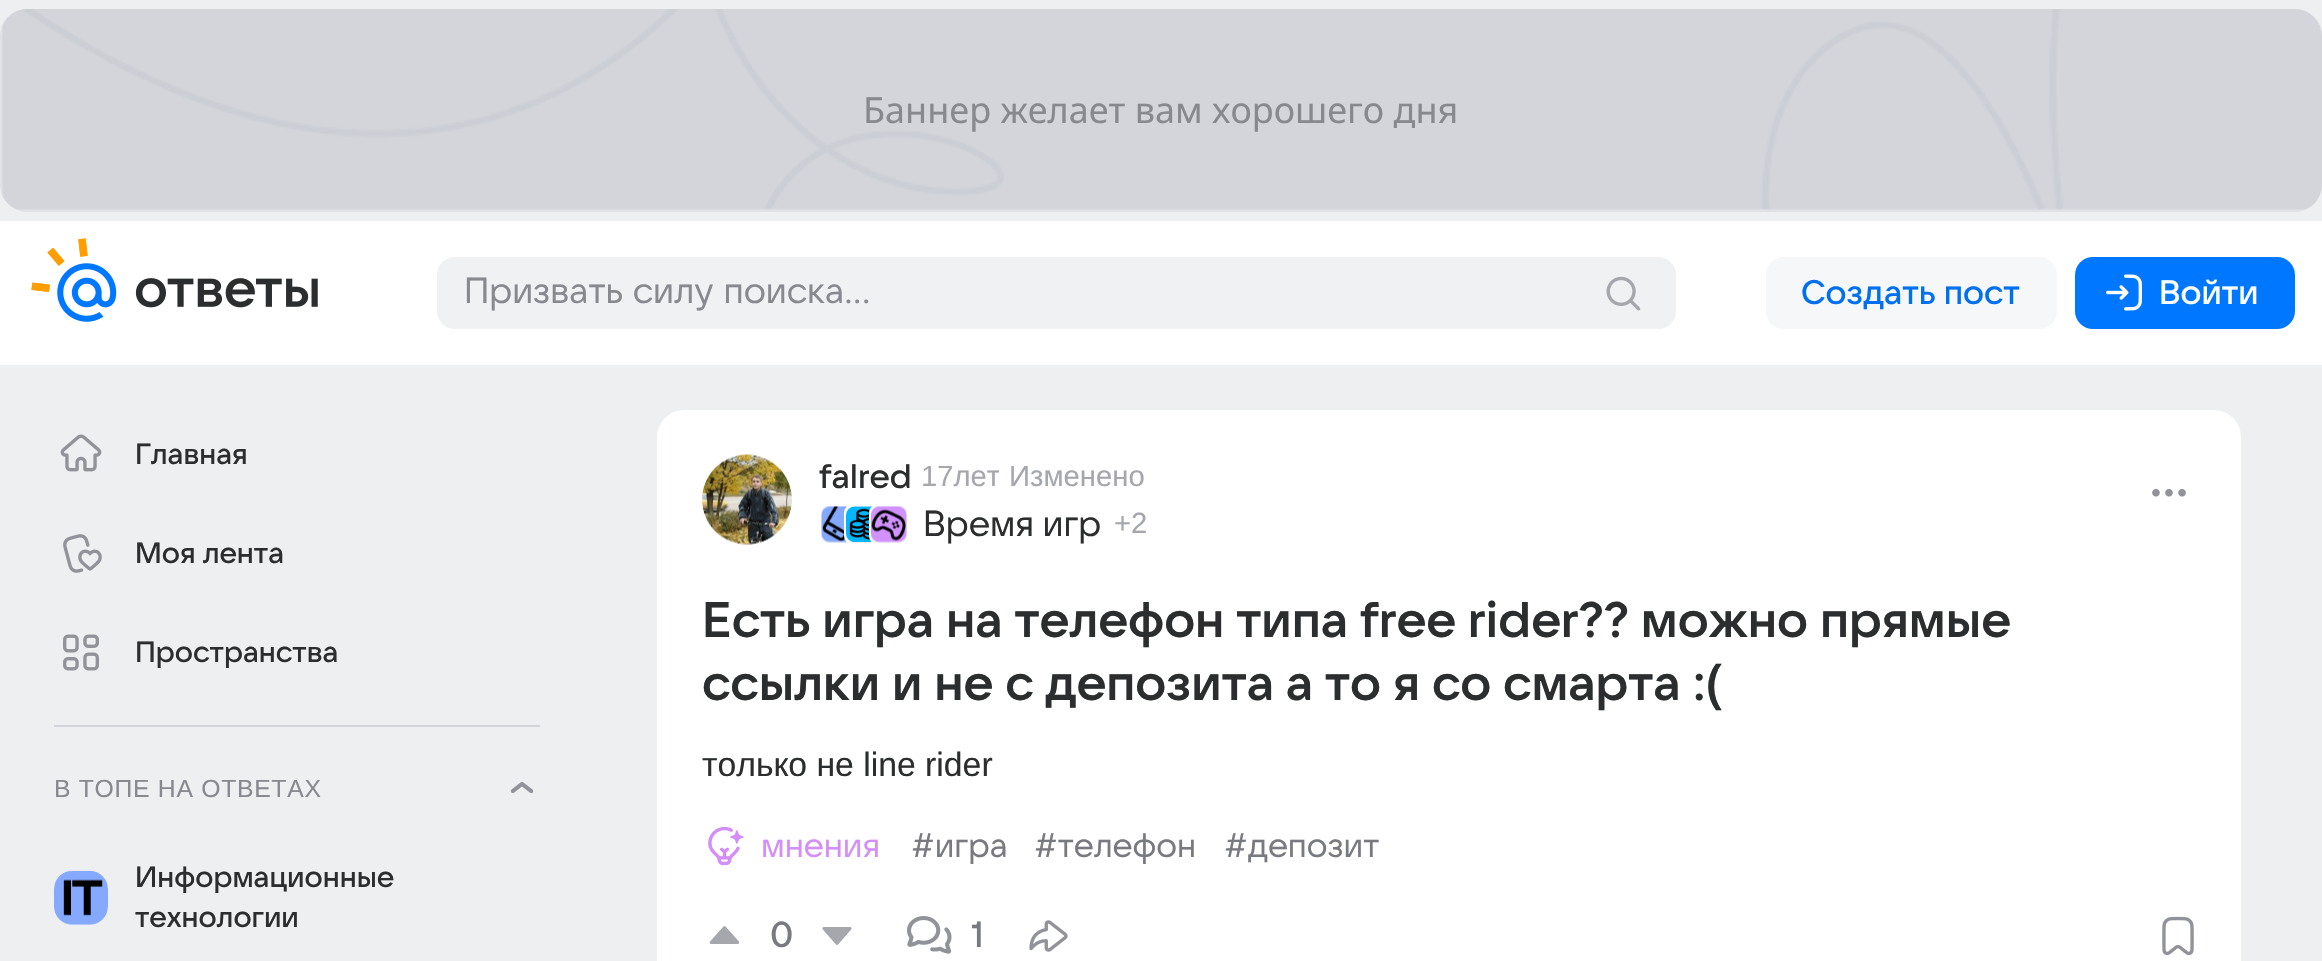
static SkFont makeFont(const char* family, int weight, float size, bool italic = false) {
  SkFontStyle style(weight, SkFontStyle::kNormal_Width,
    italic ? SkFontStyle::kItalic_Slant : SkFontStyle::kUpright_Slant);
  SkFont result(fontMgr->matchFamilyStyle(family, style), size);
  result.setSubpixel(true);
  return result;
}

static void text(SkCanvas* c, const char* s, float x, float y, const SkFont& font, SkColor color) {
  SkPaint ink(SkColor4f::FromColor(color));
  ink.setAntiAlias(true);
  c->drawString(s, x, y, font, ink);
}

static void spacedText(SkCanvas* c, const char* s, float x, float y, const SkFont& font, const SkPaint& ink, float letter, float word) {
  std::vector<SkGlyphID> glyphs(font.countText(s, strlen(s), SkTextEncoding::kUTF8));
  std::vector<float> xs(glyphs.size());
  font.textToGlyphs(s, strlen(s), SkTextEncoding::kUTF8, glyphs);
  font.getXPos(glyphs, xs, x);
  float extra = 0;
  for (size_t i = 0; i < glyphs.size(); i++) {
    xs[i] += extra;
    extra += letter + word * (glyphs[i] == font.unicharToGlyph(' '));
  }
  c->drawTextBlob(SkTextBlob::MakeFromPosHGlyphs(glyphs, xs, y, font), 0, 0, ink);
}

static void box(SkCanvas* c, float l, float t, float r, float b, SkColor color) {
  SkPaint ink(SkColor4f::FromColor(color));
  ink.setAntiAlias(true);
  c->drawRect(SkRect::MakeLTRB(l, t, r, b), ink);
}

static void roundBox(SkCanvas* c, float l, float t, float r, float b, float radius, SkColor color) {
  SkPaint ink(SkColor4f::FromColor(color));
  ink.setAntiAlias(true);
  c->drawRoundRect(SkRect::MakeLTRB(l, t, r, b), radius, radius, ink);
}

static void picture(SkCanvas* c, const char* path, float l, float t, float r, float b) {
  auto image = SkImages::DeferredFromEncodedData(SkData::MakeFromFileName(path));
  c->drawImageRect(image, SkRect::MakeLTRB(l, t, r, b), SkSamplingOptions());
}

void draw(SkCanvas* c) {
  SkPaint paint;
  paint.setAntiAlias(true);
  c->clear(0xffeeeff1);
  roundBox(c, 0, 9, 2322, 212, 27, 0xffe1e2e5);
  picture(c, "img_01.png", 2, 9, 2322, 210);
  SkFont face1 = makeFont("Noto Sans", 400, 36);
  text(c, "Баннер желает вам хорошего дня", 863, 123, face1, 0xff87898f);
  box(c, 0, 221, 2322, 365, 0xffffffff);
  picture(c, "img_02.png", 31, 238, 318, 322);
  roundBox(c, 437, 257, 1676, 329, 18, 0xfff0f1f3);
  SkFont face2 = makeFont("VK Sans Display", 400, 36);
  paint.setColor(0xff87898f);
  spacedText(c, "Призвать силу поиска...", 464, 303, face2, paint, 0, 1);
  picture(c, "img_03.png", 1606, 276, 1641, 311);
  roundBox(c, 1766, 257, 2057, 329, 18, 0xfff6f7f8);
  SkFont face3 = makeFont("VK Sans Display", 500, 33.75f);
  text(c, "Создать пост", 1801, 304, face3, 0xff0070f0);
  roundBox(c, 2075, 257, 2295, 329, 18, 0xff0077ff);
  picture(c, "img_04.png", 2106, 274, 2142, 311);
  text(c, "Войти", 2159, 304, face3, 0xffffffff);
  picture(c, "img_05.png", 60, 434, 102, 472);
  SkFont face4 = makeFont("VK Sans Display", 500, 29.25f);
  text(c, "Главная", 135, 464, face4, 0xff2c2d2e);
  picture(c, "img_06.png", 63, 534, 102, 573);
  text(c, "Моя лента", 135, 563, face4, 0xff2c2d2e);
  picture(c, "img_07.png", 63, 634, 99, 671);
  text(c, "Пространства", 135, 662, face4, 0xff2c2d2e);
  box(c, 54, 725, 540, 727, 0xffd1d4db);
  SkFont face5 = makeFont("Liberation Sans", 400, 24.75f);
  spacedText(c, "В ТОПЕ НА ОТВЕТАХ", 54, 797, face5, paint, 0.7f, 0);
  picture(c, "img_08.png", 510, 781, 534, 794);
  picture(c, "img_09.png", 54, 870, 108, 925);
  text(c, "Информационные", 135, 887, face4, 0xff2c2d2e);
  text(c, "технологии", 135, 927, face4, 0xff2c2d2e);
  roundBox(c, 657, 410, 2241, 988, 27, 0xffffffff);
  paint.setColor(0xfff0f1f3);
  c->drawCircle(747, 500, 45, paint);
  picture(c, "img_10.png", 702, 454, 792, 545);
  text(c, "falred", 819, 488, face3, 0xff2c2d2e);
  c->save();
  c->clipRect(SkRect::MakeLTRB(920, 457, 999, 497));
  SkFont face6 = makeFont("Liberation Sans", 400, 29.25f);
  text(c, "17лет", 921, 486, face6, 0xffa5a7ad);
  c->restore();
  text(c, "Изменено", 1009, 486, face6, 0xffa5a7ad);
  c->drawRoundRect(SkRect::MakeLTRB(820, 505, 859, 544), 8, 8, paint);
  paint.setStyle(SkPaint::kStroke_Style);
  paint.setStrokeWidth(2);
  paint.setColor(0xffffffff);
  c->drawRoundRect(SkRect::MakeLTRB(820, 505, 859, 544), 8, 8, paint);
  picture(c, "img_11.png", 821, 506, 848, 543);
  paint.setStyle(SkPaint::kFill_Style);
  paint.setColor(0xfff0f1f3);
  c->drawRoundRect(SkRect::MakeLTRB(845, 505, 883, 544), 8, 8, paint);
  paint.setStyle(SkPaint::kStroke_Style);
  paint.setColor(0xffffffff);
  c->drawRoundRect(SkRect::MakeLTRB(845, 505, 883, 544), 8, 8, paint);
  picture(c, "img_12.png", 846, 506, 873, 542);
  paint.setStyle(SkPaint::kFill_Style);
  paint.setColor(0xfff0f1f3);
  c->drawRoundRect(SkRect::MakeLTRB(870, 505, 908, 544), 8, 8, paint);
  paint.setStyle(SkPaint::kStroke_Style);
  paint.setColor(0xffffffff);
  c->drawRoundRect(SkRect::MakeLTRB(870, 505, 908, 544), 8, 8, paint);
  picture(c, "img_13.png", 871, 506, 907, 543);
  text(c, "Время игр", 923, 536, face2, 0xff2c2d2e);
  text(c, "+2", 1114, 533, face6, 0xffa5a7ad);
  picture(c, "img_14.png", 2152, 489, 2186, 497);
  SkFont face7 = makeFont("VK Sans Display", 600, 49.5f);
  text(c, "Есть игра на телефон типа free rider?\077 можно прямые", 702, 637, face7, 0xff2c2d2e);
  text(c, "ссылки и не с депозита а то я со смарта :(", 702, 700, face7, 0xff2c2d2e);
  SkFont face8 = makeFont("Liberation Sans", 400, 33.75f);
  text(c, "только не line rider", 702, 776, face8, 0xff2c2d2e);
  picture(c, "img_15.png", 708, 826, 744, 866);
  SkFont face9 = makeFont("VK Sans Display", 400, 33.75f);
  text(c, "мнения", 761, 857, face9, 0xffd48ef7);
  text(c, "#игра", 911, 857, face9, 0xff797a80);
  text(c, "#телефон", 1034, 857, face9, 0xff797a80);
  text(c, "#депозит", 1224, 857, face9, 0xff797a80);
  paint.setStyle(SkPaint::kFill_Style);
  paint.setColor(0xffa5a7ad);
  c->drawPath(SkPathBuilder().moveTo(711, 944).cubicTo(710, 944, 709.5f, 942.5f, 710, 941.5f).lineTo(723.5f, 926.5f).lineTo(724.5f, 926).lineTo(725.5f, 926.5f).lineTo(739, 941.5f).cubicTo(739.5f, 942.5f, 739, 944, 738, 944).close().detach(), paint);
  SkFont face10 = makeFont("VK Sans Display", 500, 36);
  text(c, "0", 770, 947, face10, 0xff797a80);
  picture(c, "img_16.png", 822, 927, 852, 945);
  picture(c, "img_17.png", 907, 916, 952, 954);
  text(c, "1", 971, 947, face10, 0xff797a80);
  picture(c, "img_18.png", 1029, 920, 1068, 952);
  picture(c, "img_19.png", 2162, 916, 2194, 956);
}
